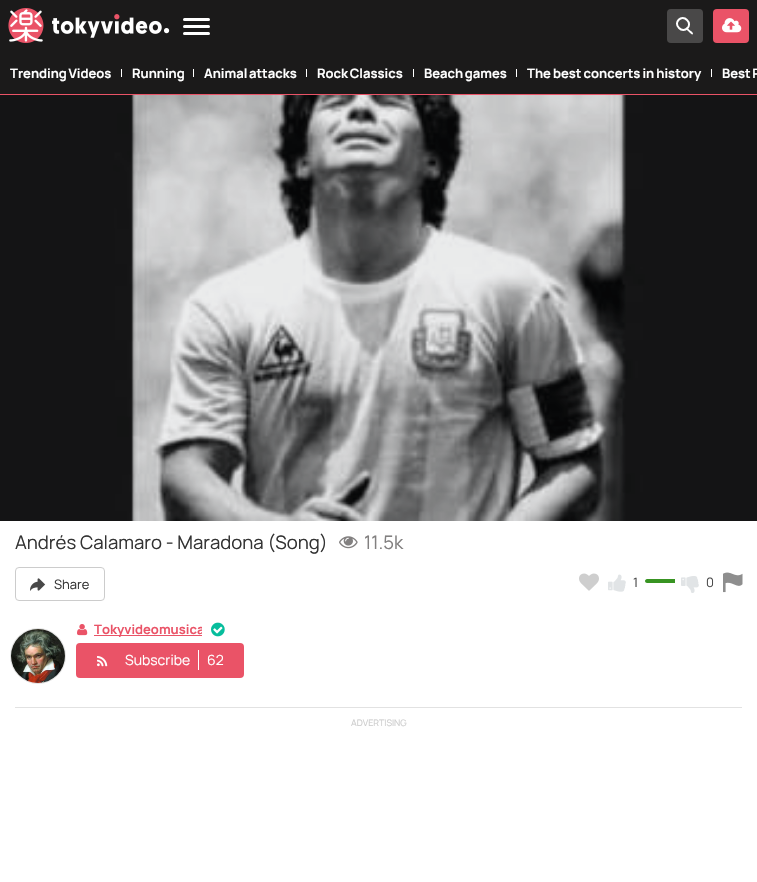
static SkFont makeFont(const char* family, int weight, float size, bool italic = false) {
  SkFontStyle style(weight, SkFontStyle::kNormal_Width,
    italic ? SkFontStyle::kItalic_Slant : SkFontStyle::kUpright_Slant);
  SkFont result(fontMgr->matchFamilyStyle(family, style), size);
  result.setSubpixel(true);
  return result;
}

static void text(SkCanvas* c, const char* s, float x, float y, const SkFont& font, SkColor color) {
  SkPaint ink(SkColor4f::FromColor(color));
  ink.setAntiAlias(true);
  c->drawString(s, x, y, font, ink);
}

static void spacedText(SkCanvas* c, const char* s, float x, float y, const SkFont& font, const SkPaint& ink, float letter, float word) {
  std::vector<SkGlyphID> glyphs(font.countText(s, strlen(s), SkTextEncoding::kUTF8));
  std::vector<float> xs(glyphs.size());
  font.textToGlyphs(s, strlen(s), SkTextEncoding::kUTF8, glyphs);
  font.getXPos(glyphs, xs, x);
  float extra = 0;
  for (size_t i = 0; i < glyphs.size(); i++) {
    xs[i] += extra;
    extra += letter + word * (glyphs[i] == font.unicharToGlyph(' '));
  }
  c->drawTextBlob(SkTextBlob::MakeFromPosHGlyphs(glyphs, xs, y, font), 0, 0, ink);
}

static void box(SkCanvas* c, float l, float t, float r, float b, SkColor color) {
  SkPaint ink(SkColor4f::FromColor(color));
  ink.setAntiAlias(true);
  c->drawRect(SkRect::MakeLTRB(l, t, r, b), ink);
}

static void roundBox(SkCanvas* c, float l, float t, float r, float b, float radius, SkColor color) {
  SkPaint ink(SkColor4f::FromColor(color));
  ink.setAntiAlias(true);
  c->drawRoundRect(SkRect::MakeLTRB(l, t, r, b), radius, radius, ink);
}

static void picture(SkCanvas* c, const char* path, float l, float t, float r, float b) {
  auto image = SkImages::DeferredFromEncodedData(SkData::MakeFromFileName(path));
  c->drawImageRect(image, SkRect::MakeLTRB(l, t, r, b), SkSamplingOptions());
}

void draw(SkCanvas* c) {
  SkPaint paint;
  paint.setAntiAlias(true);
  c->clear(0xffffffff);
  box(c, 0, 0, 757, 94, 0xff1b1a1a);
  picture(c, "img_01.png", 8, 8, 170, 43);
  roundBox(c, 183, 25, 210, 28, 1.5f, 0xffffffff);
  roundBox(c, 183, 18, 210, 21, 1.5f, 0xffffffff);
  roundBox(c, 183, 32, 210, 35, 1.5f, 0xffffffff);
  roundBox(c, 667, 9, 703, 43, 4, 0xff494848);
  paint.setColor(0xffffffff);
  c->drawPath(SkPathBuilder().moveTo(687.5f, 28).lineTo(690, 30.5f).cubicTo(691, 31, 693, 32.5f, 693, 33.5f).cubicTo(692.5f, 36.5f, 688.5f, 31, 688, 31).lineTo(686, 29).cubicTo(685.5f, 28, 687, 27, 687.5f, 28).close().detach(), paint);
  paint.setStyle(SkPaint::kStroke_Style);
  paint.setStrokeWidth(2);
  c->drawPath(SkPathBuilder().moveTo(687, 20).cubicTo(693, 25.5f, 684.5f, 34, 679, 28).cubicTo(673, 22.5f, 681.5f, 14, 687, 20).close().detach(), paint);
  roundBox(c, 713, 9, 749, 43, 4, 0xffea5367);
  picture(c, "img_02.png", 722, 18, 742, 33);
  box(c, 0, 94, 757, 95, 0xffea5367);
  SkFont face1 = makeFont("Manrope", 700, 13);
  paint.setStyle(SkPaint::kFill_Style);
  spacedText(c, "Trending Videos", 10, 78, face1, paint, 0, -1);
  box(c, 121, 69, 122, 77, 0xffffffff);
  text(c, "Running", 132, 78, face1, 0xffffffff);
  box(c, 193, 69, 194, 77, 0xffffffff);
  spacedText(c, "Animal attacks", 204, 78, face1, paint, 0, -1);
  box(c, 306, 69, 307, 77, 0xffffffff);
  spacedText(c, "Rock Classics", 317, 78, face1, paint, 0, -1);
  box(c, 413, 69, 414, 77, 0xffffffff);
  spacedText(c, "Beach games", 424, 78, face1, paint, 0, -1);
  box(c, 516, 69, 517, 77, 0xffffffff);
  spacedText(c, "The best concerts in history", 527, 78, face1, paint, 0, -0.5f);
  box(c, 711, 69, 712, 77, 0xffffffff);
  spacedText(c, "Best R", 722, 78, face1, paint, 0, -1);
  picture(c, "img_03.png", 0, 95, 757, 521);
  SkFont face2 = makeFont("Manrope", 400, 18.6f);
  text(c, "Andrés Calamaro - Maradona (Song)", 15, 549, face2, 0xff333333);
  picture(c, "img_04.png", 339, 536, 358, 549);
  text(c, "11.5k", 364, 549, face2, 0xff828080);
  paint.setStyle(SkPaint::kStroke_Style);
  paint.setStrokeWidth(1);
  paint.setColor(0xffcccccc);
  c->drawRoundRect(SkRect::MakeLTRB(15.5f, 567.5f, 104.5f, 600.5f), 3.5f, 3.5f, paint);
  picture(c, "img_05.png", 30, 578, 46, 591);
  SkFont face3 = makeFont("Manrope", 400, 13);
  text(c, "Share", 54, 589, face3, 0xff333333);
  picture(c, "img_06.png", 579, 573, 599, 591);
  picture(c, "img_07.png", 608, 574, 626, 592);
  text(c, "1", 633, 587, face3, 0xff484848);
  paint.setStyle(SkPaint::kFill_Style);
  paint.setColor(0xff389422);
  c->drawPath(SkPathBuilder().moveTo(647, 579).lineTo(675, 579).lineTo(675, 583).lineTo(647, 583).cubicTo(646, 583, 645, 582, 645, 581).cubicTo(645, 580, 646, 579, 647, 579).close().detach(), paint);
  picture(c, "img_08.png", 681, 576, 699, 593);
  text(c, "0", 706, 587, face3, 0xff484848);
  picture(c, "img_09.png", 723, 572, 743, 593);
  paint.setStyle(SkPaint::kStroke_Style);
  paint.setColor(0xffe2e2e2);
  c->drawCircle(38, 656, 27.5f, paint);
  picture(c, "img_10.png", 11, 629, 65, 683);
  picture(c, "img_11.png", 77, 624, 88, 636);
  box(c, 94, 635, 202, 636, 0xffea5367);
  c->save();
  c->clipRect(SkRect::MakeLTRB(94, 619, 202, 640));
  text(c, "Tokyvideomusica", 94, 634, face1, 0xffea5367);
  c->restore();
  picture(c, "img_12.png", 211, 622, 225, 637);
  roundBox(c, 76, 643, 244, 678, 4, 0xffea5367);
  picture(c, "img_13.png", 97, 656, 108, 667);
  SkFont face4 = makeFont("Manrope", 400, 14);
  text(c, "Subscribe", 125, 665, face4, 0xffffffff);
  box(c, 198, 650, 199, 670, 0xffffffff);
  text(c, "62", 207, 665, face4, 0xffffffff);
  box(c, 15, 707, 742, 708, 0xffe2e2e2);
  SkFont face5 = makeFont("Manrope", 400, 9);
  text(c, "ADVERTISING", 351, 726, face5, 0xffcccccc);
}
